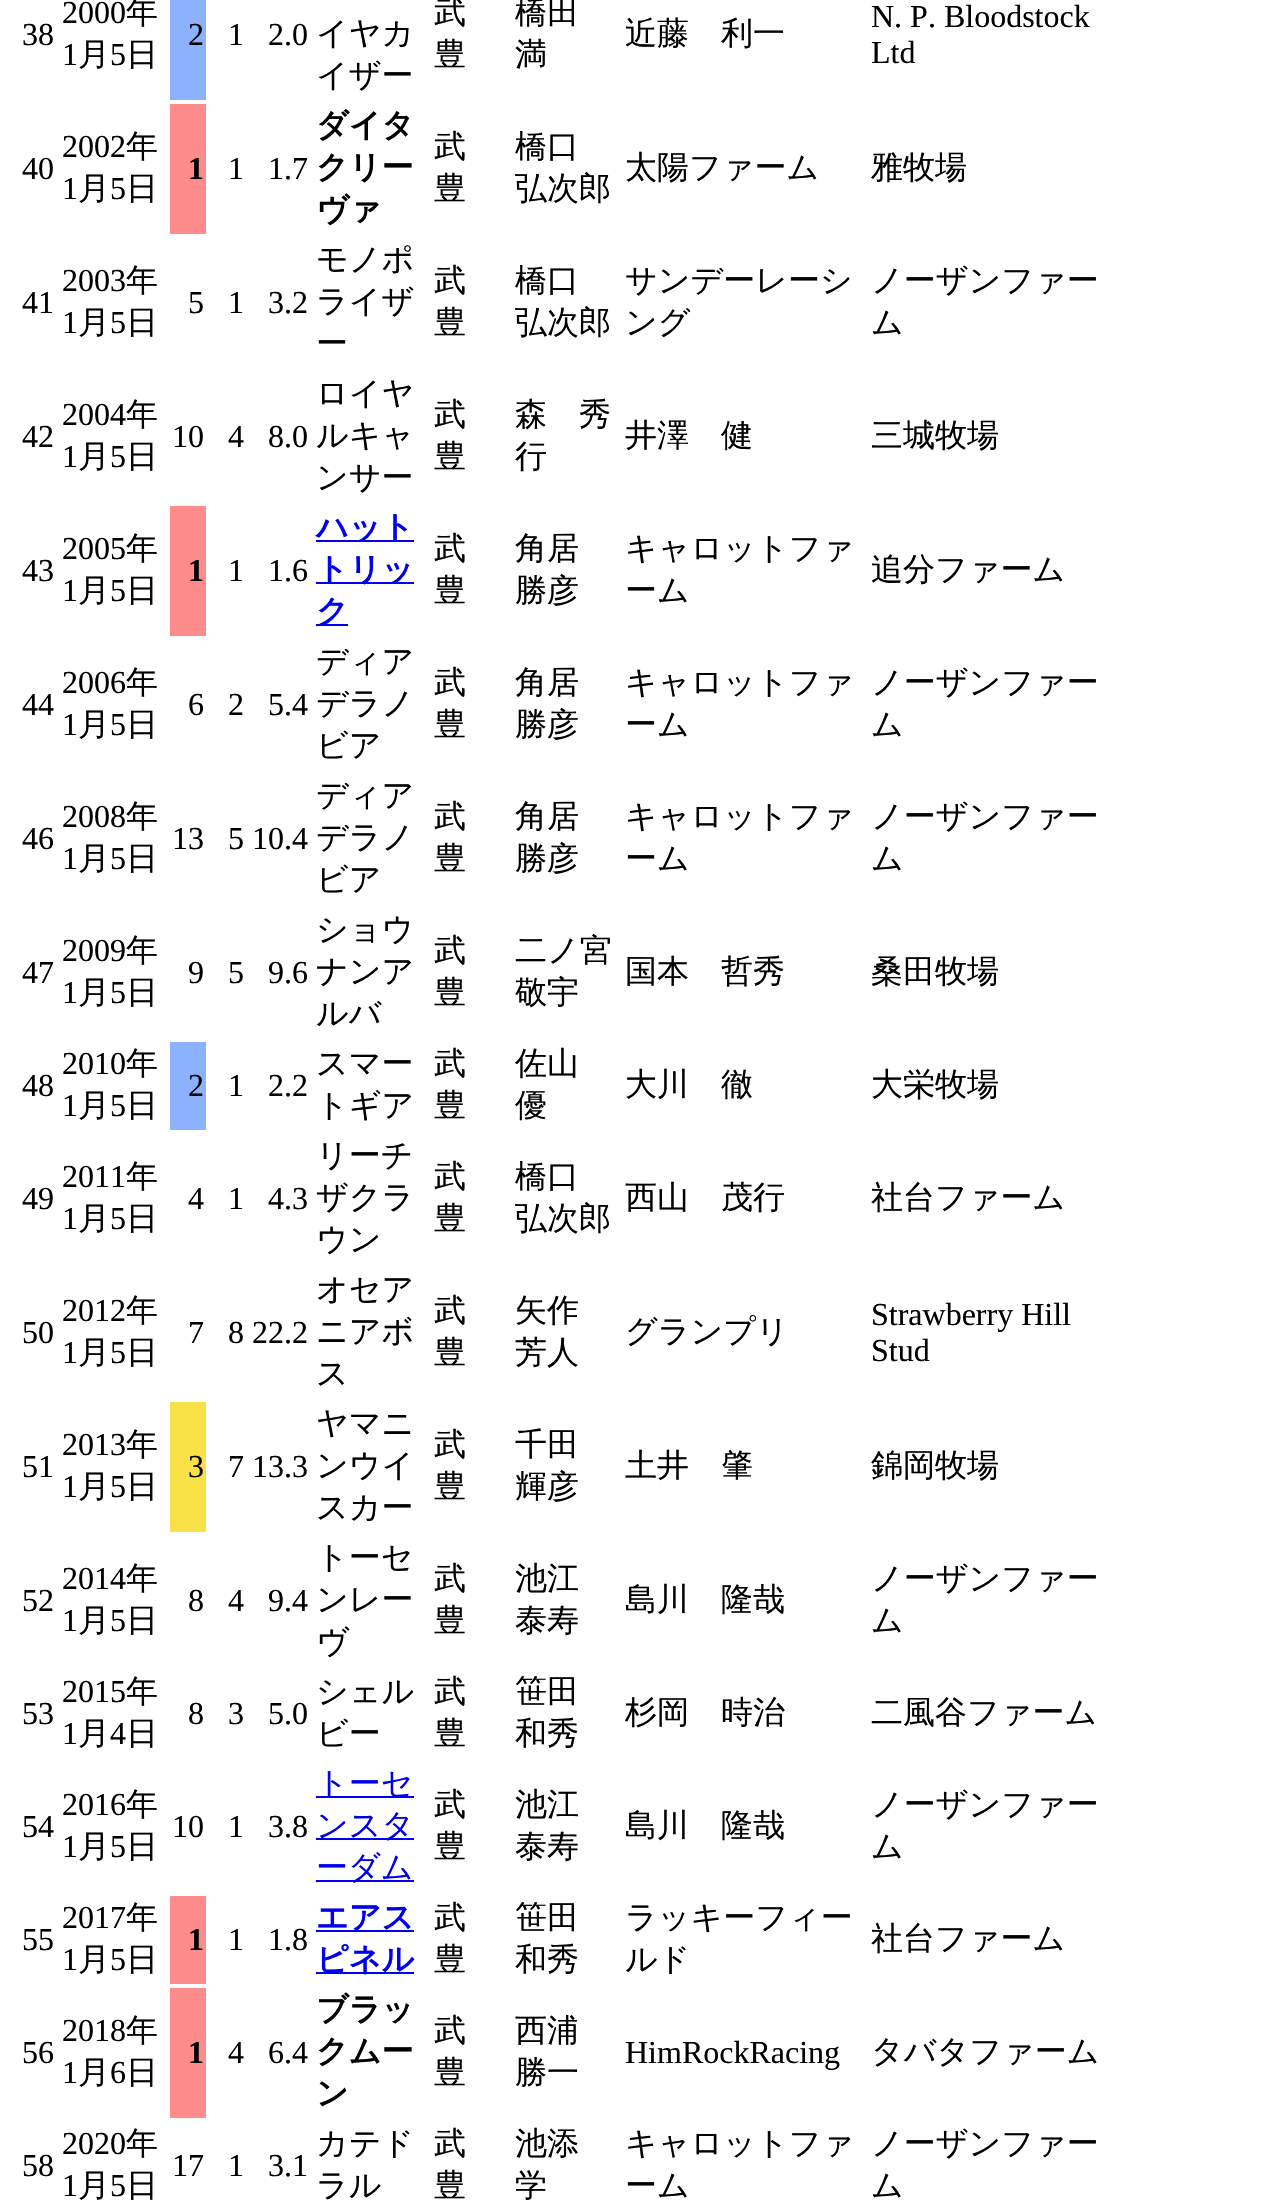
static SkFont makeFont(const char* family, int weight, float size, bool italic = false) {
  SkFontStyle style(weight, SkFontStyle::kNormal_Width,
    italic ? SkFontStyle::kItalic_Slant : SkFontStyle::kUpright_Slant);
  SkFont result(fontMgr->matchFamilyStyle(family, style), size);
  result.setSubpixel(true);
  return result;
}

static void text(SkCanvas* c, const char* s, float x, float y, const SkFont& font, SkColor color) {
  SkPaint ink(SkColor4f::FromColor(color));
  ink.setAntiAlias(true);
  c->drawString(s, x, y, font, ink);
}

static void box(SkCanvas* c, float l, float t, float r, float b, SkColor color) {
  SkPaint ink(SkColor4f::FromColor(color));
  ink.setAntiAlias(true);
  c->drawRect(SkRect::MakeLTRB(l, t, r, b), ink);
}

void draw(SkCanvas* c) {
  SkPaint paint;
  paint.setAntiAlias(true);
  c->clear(0xffffffff);
  SkFont face1 = makeFont("Liberation Serif", 400, 32);
  text(c, "38", 22, 45, face1, 0xff000000);
  text(c, "2000", 62, 23, face1, 0xff000000);
  SkFont face2 = makeFont("WenQuanYi Zen Hei", 500, 32);
  text(c, "年", 126, 23, face2, 0xff000000);
  text(c, "1", 62, 65, face1, 0xff000000);
  text(c, "月", 78, 65, face2, 0xff000000);
  text(c, "5", 110, 65, face1, 0xff000000);
  text(c, "日", 126, 65, face2, 0xff000000);
  box(c, 170, 0, 206, 100, 0xff8cb2ff);
  text(c, "2", 188, 45, face1, 0xff000000);
  text(c, "1", 228, 45, face1, 0xff000000);
  text(c, "2.0", 268, 45, face1, 0xff000000);
  text(c, "イヤカ", 316, 44, face2, 0xff000000);
  text(c, "イザー", 316, 86, face2, 0xff000000);
  text(c, "武", 434, 23, face2, 0xff000000);
  text(c, "豊", 434, 65, face2, 0xff000000);
  text(c, "橋田", 515, 23, face2, 0xff000000);
  text(c, "満", 515, 65, face2, 0xff000000);
  text(c, "近藤　利一", 625, 44, face2, 0xff000000);
  text(c, "N. P. Bloodstock", 871, 27, face1, 0xff000000);
  text(c, "Ltd", 871, 63, face1, 0xff000000);
  text(c, "40", 22, 179, face1, 0xff000000);
  text(c, "2002", 62, 157, face1, 0xff000000);
  text(c, "年", 126, 157, face2, 0xff000000);
  text(c, "1", 62, 199, face1, 0xff000000);
  text(c, "月", 78, 199, face2, 0xff000000);
  text(c, "5", 110, 199, face1, 0xff000000);
  text(c, "日", 126, 199, face2, 0xff000000);
  box(c, 170, 104, 206, 234, 0xffff8c8c);
  SkFont face3 = makeFont("Liberation Serif", 700, 32);
  text(c, "1", 188, 179, face3, 0xff000000);
  text(c, "1", 228, 179, face1, 0xff000000);
  text(c, "1.7", 268, 179, face1, 0xff000000);
  SkFont face4 = makeFont("WenQuanYi Zen Hei", 700, 32);
  text(c, "ダイタ", 316, 136, face4, 0xff000000);
  text(c, "クリー", 316, 178, face4, 0xff000000);
  text(c, "ヴァ", 316, 220, face4, 0xff000000);
  text(c, "武", 434, 157, face2, 0xff000000);
  text(c, "豊", 434, 199, face2, 0xff000000);
  text(c, "橋口", 515, 157, face2, 0xff000000);
  text(c, "弘次郎", 515, 199, face2, 0xff000000);
  text(c, "太陽ファーム", 625, 178, face2, 0xff000000);
  text(c, "雅牧場", 871, 178, face2, 0xff000000);
  text(c, "41", 22, 313, face1, 0xff000000);
  text(c, "2003", 62, 291, face1, 0xff000000);
  text(c, "年", 126, 291, face2, 0xff000000);
  text(c, "1", 62, 333, face1, 0xff000000);
  text(c, "月", 78, 333, face2, 0xff000000);
  text(c, "5", 110, 333, face1, 0xff000000);
  text(c, "日", 126, 333, face2, 0xff000000);
  text(c, "5", 188, 313, face1, 0xff000000);
  text(c, "1", 228, 313, face1, 0xff000000);
  text(c, "3.2", 268, 313, face1, 0xff000000);
  text(c, "モノポ", 316, 270, face2, 0xff000000);
  text(c, "ライザ", 316, 312, face2, 0xff000000);
  text(c, "ー", 316, 354, face2, 0xff000000);
  text(c, "武", 434, 291, face2, 0xff000000);
  text(c, "豊", 434, 333, face2, 0xff000000);
  text(c, "橋口", 515, 291, face2, 0xff000000);
  text(c, "弘次郎", 515, 333, face2, 0xff000000);
  text(c, "サンデーレーシ", 625, 291, face2, 0xff000000);
  text(c, "ング", 625, 333, face2, 0xff000000);
  text(c, "ノーザンファー", 871, 291, face2, 0xff000000);
  text(c, "ム", 871, 333, face2, 0xff000000);
  text(c, "42", 22, 447, face1, 0xff000000);
  text(c, "2004", 62, 425, face1, 0xff000000);
  text(c, "年", 126, 425, face2, 0xff000000);
  text(c, "1", 62, 467, face1, 0xff000000);
  text(c, "月", 78, 467, face2, 0xff000000);
  text(c, "5", 110, 467, face1, 0xff000000);
  text(c, "日", 126, 467, face2, 0xff000000);
  text(c, "10", 172, 447, face1, 0xff000000);
  text(c, "4", 228, 447, face1, 0xff000000);
  text(c, "8.0", 268, 447, face1, 0xff000000);
  text(c, "ロイヤ", 316, 404, face2, 0xff000000);
  text(c, "ルキャ", 316, 446, face2, 0xff000000);
  text(c, "ンサー", 316, 488, face2, 0xff000000);
  text(c, "武", 434, 425, face2, 0xff000000);
  text(c, "豊", 434, 467, face2, 0xff000000);
  text(c, "森　秀", 515, 425, face2, 0xff000000);
  text(c, "行", 515, 467, face2, 0xff000000);
  text(c, "井澤　健", 625, 446, face2, 0xff000000);
  text(c, "三城牧場", 871, 446, face2, 0xff000000);
  text(c, "43", 22, 581, face1, 0xff000000);
  text(c, "2005", 62, 559, face1, 0xff000000);
  text(c, "年", 126, 559, face2, 0xff000000);
  text(c, "1", 62, 601, face1, 0xff000000);
  text(c, "月", 78, 601, face2, 0xff000000);
  text(c, "5", 110, 601, face1, 0xff000000);
  text(c, "日", 126, 601, face2, 0xff000000);
  box(c, 170, 506, 206, 636, 0xffff8c8c);
  text(c, "1", 188, 581, face3, 0xff000000);
  text(c, "1", 228, 581, face1, 0xff000000);
  text(c, "1.6", 268, 581, face1, 0xff000000);
  box(c, 316, 540, 414, 542, 0xff0000ee);
  text(c, "ハット", 316, 538, face4, 0xff0000ee);
  box(c, 316, 582, 414, 584, 0xff0000ee);
  text(c, "トリッ", 316, 580, face4, 0xff0000ee);
  box(c, 316, 624, 348, 626, 0xff0000ee);
  text(c, "ク", 316, 622, face4, 0xff0000ee);
  text(c, "武", 434, 559, face2, 0xff000000);
  text(c, "豊", 434, 601, face2, 0xff000000);
  text(c, "角居", 515, 559, face2, 0xff000000);
  text(c, "勝彦", 515, 601, face2, 0xff000000);
  text(c, "キャロットファ", 625, 559, face2, 0xff000000);
  text(c, "ーム", 625, 601, face2, 0xff000000);
  text(c, "追分ファーム", 871, 580, face2, 0xff000000);
  text(c, "44", 22, 715, face1, 0xff000000);
  text(c, "2006", 62, 693, face1, 0xff000000);
  text(c, "年", 126, 693, face2, 0xff000000);
  text(c, "1", 62, 735, face1, 0xff000000);
  text(c, "月", 78, 735, face2, 0xff000000);
  text(c, "5", 110, 735, face1, 0xff000000);
  text(c, "日", 126, 735, face2, 0xff000000);
  text(c, "6", 188, 715, face1, 0xff000000);
  text(c, "2", 228, 715, face1, 0xff000000);
  text(c, "5.4", 268, 715, face1, 0xff000000);
  text(c, "ディア", 316, 672, face2, 0xff000000);
  text(c, "デラノ", 316, 714, face2, 0xff000000);
  text(c, "ビア", 316, 756, face2, 0xff000000);
  text(c, "武", 434, 693, face2, 0xff000000);
  text(c, "豊", 434, 735, face2, 0xff000000);
  text(c, "角居", 515, 693, face2, 0xff000000);
  text(c, "勝彦", 515, 735, face2, 0xff000000);
  text(c, "キャロットファ", 625, 693, face2, 0xff000000);
  text(c, "ーム", 625, 735, face2, 0xff000000);
  text(c, "ノーザンファー", 871, 693, face2, 0xff000000);
  text(c, "ム", 871, 735, face2, 0xff000000);
  text(c, "46", 22, 849, face1, 0xff000000);
  text(c, "2008", 62, 827, face1, 0xff000000);
  text(c, "年", 126, 827, face2, 0xff000000);
  text(c, "1", 62, 869, face1, 0xff000000);
  text(c, "月", 78, 869, face2, 0xff000000);
  text(c, "5", 110, 869, face1, 0xff000000);
  text(c, "日", 126, 869, face2, 0xff000000);
  text(c, "13", 172, 849, face1, 0xff000000);
  text(c, "5 10.4", 228, 849, face1, 0xff000000);
  text(c, "ディア", 316, 806, face2, 0xff000000);
  text(c, "デラノ", 316, 848, face2, 0xff000000);
  text(c, "ビア", 316, 890, face2, 0xff000000);
  text(c, "武", 434, 827, face2, 0xff000000);
  text(c, "豊", 434, 869, face2, 0xff000000);
  text(c, "角居", 515, 827, face2, 0xff000000);
  text(c, "勝彦", 515, 869, face2, 0xff000000);
  text(c, "キャロットファ", 625, 827, face2, 0xff000000);
  text(c, "ーム", 625, 869, face2, 0xff000000);
  text(c, "ノーザンファー", 871, 827, face2, 0xff000000);
  text(c, "ム", 871, 869, face2, 0xff000000);
  text(c, "47", 22, 983, face1, 0xff000000);
  text(c, "2009", 62, 961, face1, 0xff000000);
  text(c, "年", 126, 961, face2, 0xff000000);
  text(c, "1", 62, 1003, face1, 0xff000000);
  text(c, "月", 78, 1003, face2, 0xff000000);
  text(c, "5", 110, 1003, face1, 0xff000000);
  text(c, "日", 126, 1003, face2, 0xff000000);
  text(c, "9", 188, 983, face1, 0xff000000);
  text(c, "5", 228, 983, face1, 0xff000000);
  text(c, "9.6", 268, 983, face1, 0xff000000);
  text(c, "ショウ", 316, 940, face2, 0xff000000);
  text(c, "ナンア", 316, 982, face2, 0xff000000);
  text(c, "ルバ", 316, 1024, face2, 0xff000000);
  text(c, "武", 434, 961, face2, 0xff000000);
  text(c, "豊", 434, 1003, face2, 0xff000000);
  text(c, "二ノ宮", 515, 961, face2, 0xff000000);
  text(c, "敬宇", 515, 1003, face2, 0xff000000);
  text(c, "国本　哲秀", 625, 982, face2, 0xff000000);
  text(c, "桑田牧場", 871, 982, face2, 0xff000000);
  text(c, "48", 22, 1096, face1, 0xff000000);
  text(c, "2010", 62, 1074, face1, 0xff000000);
  text(c, "年", 126, 1074, face2, 0xff000000);
  text(c, "1", 62, 1116, face1, 0xff000000);
  text(c, "月", 78, 1116, face2, 0xff000000);
  text(c, "5", 110, 1116, face1, 0xff000000);
  text(c, "日", 126, 1116, face2, 0xff000000);
  box(c, 170, 1042, 206, 1130, 0xff8cb2ff);
  text(c, "2", 188, 1096, face1, 0xff000000);
  text(c, "1", 228, 1096, face1, 0xff000000);
  text(c, "2.2", 268, 1096, face1, 0xff000000);
  text(c, "スマー", 316, 1074, face2, 0xff000000);
  text(c, "トギア", 316, 1116, face2, 0xff000000);
  text(c, "武", 434, 1074, face2, 0xff000000);
  text(c, "豊", 434, 1116, face2, 0xff000000);
  text(c, "佐山", 515, 1074, face2, 0xff000000);
  text(c, "優", 515, 1116, face2, 0xff000000);
  text(c, "大川　徹", 625, 1095, face2, 0xff000000);
  text(c, "大栄牧場", 871, 1095, face2, 0xff000000);
  text(c, "49", 22, 1209, face1, 0xff000000);
  text(c, "2011", 62, 1187, face1, 0xff000000);
  text(c, "年", 126, 1187, face2, 0xff000000);
  text(c, "1", 62, 1229, face1, 0xff000000);
  text(c, "月", 78, 1229, face2, 0xff000000);
  text(c, "5", 110, 1229, face1, 0xff000000);
  text(c, "日", 126, 1229, face2, 0xff000000);
  text(c, "4", 188, 1209, face1, 0xff000000);
  text(c, "1", 228, 1209, face1, 0xff000000);
  text(c, "4.3", 268, 1209, face1, 0xff000000);
  text(c, "リーチ", 316, 1166, face2, 0xff000000);
  text(c, "ザクラ", 316, 1208, face2, 0xff000000);
  text(c, "ウン", 316, 1250, face2, 0xff000000);
  text(c, "武", 434, 1187, face2, 0xff000000);
  text(c, "豊", 434, 1229, face2, 0xff000000);
  text(c, "橋口", 515, 1187, face2, 0xff000000);
  text(c, "弘次郎", 515, 1229, face2, 0xff000000);
  text(c, "西山　茂行", 625, 1208, face2, 0xff000000);
  text(c, "社台ファーム", 871, 1208, face2, 0xff000000);
  text(c, "50", 22, 1343, face1, 0xff000000);
  text(c, "2012", 62, 1321, face1, 0xff000000);
  text(c, "年", 126, 1321, face2, 0xff000000);
  text(c, "1", 62, 1363, face1, 0xff000000);
  text(c, "月", 78, 1363, face2, 0xff000000);
  text(c, "5", 110, 1363, face1, 0xff000000);
  text(c, "日", 126, 1363, face2, 0xff000000);
  text(c, "7", 188, 1343, face1, 0xff000000);
  text(c, "8 22.2", 228, 1343, face1, 0xff000000);
  text(c, "オセア", 316, 1300, face2, 0xff000000);
  text(c, "ニアボ", 316, 1342, face2, 0xff000000);
  text(c, "ス", 316, 1384, face2, 0xff000000);
  text(c, "武", 434, 1321, face2, 0xff000000);
  text(c, "豊", 434, 1363, face2, 0xff000000);
  text(c, "矢作", 515, 1321, face2, 0xff000000);
  text(c, "芳人", 515, 1363, face2, 0xff000000);
  text(c, "グランプリ", 625, 1342, face2, 0xff000000);
  text(c, "Strawberry Hill", 871, 1325, face1, 0xff000000);
  text(c, "Stud", 871, 1361, face1, 0xff000000);
  text(c, "51", 22, 1477, face1, 0xff000000);
  text(c, "2013", 62, 1455, face1, 0xff000000);
  text(c, "年", 126, 1455, face2, 0xff000000);
  text(c, "1", 62, 1497, face1, 0xff000000);
  text(c, "月", 78, 1497, face2, 0xff000000);
  text(c, "5", 110, 1497, face1, 0xff000000);
  text(c, "日", 126, 1497, face2, 0xff000000);
  box(c, 170, 1402, 206, 1532, 0xfff9e247);
  text(c, "3", 188, 1477, face1, 0xff000000);
  text(c, "7 13.3", 228, 1477, face1, 0xff000000);
  text(c, "ヤマニ", 316, 1434, face2, 0xff000000);
  text(c, "ンウイ", 316, 1476, face2, 0xff000000);
  text(c, "スカー", 316, 1518, face2, 0xff000000);
  text(c, "武", 434, 1455, face2, 0xff000000);
  text(c, "豊", 434, 1497, face2, 0xff000000);
  text(c, "千田", 515, 1455, face2, 0xff000000);
  text(c, "輝彦", 515, 1497, face2, 0xff000000);
  text(c, "土井　肇", 625, 1476, face2, 0xff000000);
  text(c, "錦岡牧場", 871, 1476, face2, 0xff000000);
  text(c, "52", 22, 1611, face1, 0xff000000);
  text(c, "2014", 62, 1589, face1, 0xff000000);
  text(c, "年", 126, 1589, face2, 0xff000000);
  text(c, "1", 62, 1631, face1, 0xff000000);
  text(c, "月", 78, 1631, face2, 0xff000000);
  text(c, "5", 110, 1631, face1, 0xff000000);
  text(c, "日", 126, 1631, face2, 0xff000000);
  text(c, "8", 188, 1611, face1, 0xff000000);
  text(c, "4", 228, 1611, face1, 0xff000000);
  text(c, "9.4", 268, 1611, face1, 0xff000000);
  text(c, "トーセ", 316, 1568, face2, 0xff000000);
  text(c, "ンレー", 316, 1610, face2, 0xff000000);
  text(c, "ヴ", 316, 1652, face2, 0xff000000);
  text(c, "武", 434, 1589, face2, 0xff000000);
  text(c, "豊", 434, 1631, face2, 0xff000000);
  text(c, "池江", 515, 1589, face2, 0xff000000);
  text(c, "泰寿", 515, 1631, face2, 0xff000000);
  text(c, "島川　隆哉", 625, 1610, face2, 0xff000000);
  text(c, "ノーザンファー", 871, 1589, face2, 0xff000000);
  text(c, "ム", 871, 1631, face2, 0xff000000);
  text(c, "53", 22, 1724, face1, 0xff000000);
  text(c, "2015", 62, 1702, face1, 0xff000000);
  text(c, "年", 126, 1702, face2, 0xff000000);
  text(c, "1", 62, 1744, face1, 0xff000000);
  text(c, "月", 78, 1744, face2, 0xff000000);
  text(c, "4", 110, 1744, face1, 0xff000000);
  text(c, "日", 126, 1744, face2, 0xff000000);
  text(c, "8", 188, 1724, face1, 0xff000000);
  text(c, "3", 228, 1724, face1, 0xff000000);
  text(c, "5.0", 268, 1724, face1, 0xff000000);
  text(c, "シェル", 316, 1702, face2, 0xff000000);
  text(c, "ビー", 316, 1744, face2, 0xff000000);
  text(c, "武", 434, 1702, face2, 0xff000000);
  text(c, "豊", 434, 1744, face2, 0xff000000);
  text(c, "笹田", 515, 1702, face2, 0xff000000);
  text(c, "和秀", 515, 1744, face2, 0xff000000);
  text(c, "杉岡　時治", 625, 1723, face2, 0xff000000);
  text(c, "二風谷ファーム", 871, 1723, face2, 0xff000000);
  text(c, "54", 22, 1837, face1, 0xff000000);
  text(c, "2016", 62, 1815, face1, 0xff000000);
  text(c, "年", 126, 1815, face2, 0xff000000);
  text(c, "1", 62, 1857, face1, 0xff000000);
  text(c, "月", 78, 1857, face2, 0xff000000);
  text(c, "5", 110, 1857, face1, 0xff000000);
  text(c, "日", 126, 1857, face2, 0xff000000);
  text(c, "10", 172, 1837, face1, 0xff000000);
  text(c, "1", 228, 1837, face1, 0xff000000);
  text(c, "3.8", 268, 1837, face1, 0xff000000);
  box(c, 316, 1796, 414, 1798, 0xff0000ee);
  text(c, "トーセ", 316, 1794, face2, 0xff0000ee);
  box(c, 316, 1838, 414, 1840, 0xff0000ee);
  text(c, "ンスタ", 316, 1836, face2, 0xff0000ee);
  box(c, 316, 1880, 414, 1882, 0xff0000ee);
  text(c, "ーダム", 316, 1878, face2, 0xff0000ee);
  text(c, "武", 434, 1815, face2, 0xff000000);
  text(c, "豊", 434, 1857, face2, 0xff000000);
  text(c, "池江", 515, 1815, face2, 0xff000000);
  text(c, "泰寿", 515, 1857, face2, 0xff000000);
  text(c, "島川　隆哉", 625, 1836, face2, 0xff000000);
  text(c, "ノーザンファー", 871, 1815, face2, 0xff000000);
  text(c, "ム", 871, 1857, face2, 0xff000000);
  text(c, "55", 22, 1950, face1, 0xff000000);
  text(c, "2017", 62, 1928, face1, 0xff000000);
  text(c, "年", 126, 1928, face2, 0xff000000);
  text(c, "1", 62, 1970, face1, 0xff000000);
  text(c, "月", 78, 1970, face2, 0xff000000);
  text(c, "5", 110, 1970, face1, 0xff000000);
  text(c, "日", 126, 1970, face2, 0xff000000);
  box(c, 170, 1896, 206, 1984, 0xffff8c8c);
  text(c, "1", 188, 1950, face3, 0xff000000);
  text(c, "1", 228, 1950, face1, 0xff000000);
  text(c, "1.8", 268, 1950, face1, 0xff000000);
  box(c, 316, 1930, 414, 1932, 0xff0000ee);
  text(c, "エアス", 316, 1928, face4, 0xff0000ee);
  box(c, 316, 1972, 414, 1974, 0xff0000ee);
  text(c, "ピネル", 316, 1970, face4, 0xff0000ee);
  text(c, "武", 434, 1928, face2, 0xff000000);
  text(c, "豊", 434, 1970, face2, 0xff000000);
  text(c, "笹田", 515, 1928, face2, 0xff000000);
  text(c, "和秀", 515, 1970, face2, 0xff000000);
  text(c, "ラッキーフィー", 625, 1928, face2, 0xff000000);
  text(c, "ルド", 625, 1970, face2, 0xff000000);
  text(c, "社台ファーム", 871, 1949, face2, 0xff000000);
  text(c, "56", 22, 2063, face1, 0xff000000);
  text(c, "2018", 62, 2041, face1, 0xff000000);
  text(c, "年", 126, 2041, face2, 0xff000000);
  text(c, "1", 62, 2083, face1, 0xff000000);
  text(c, "月", 78, 2083, face2, 0xff000000);
  text(c, "6", 110, 2083, face1, 0xff000000);
  text(c, "日", 126, 2083, face2, 0xff000000);
  box(c, 170, 1988, 206, 2118, 0xffff8c8c);
  text(c, "1", 188, 2063, face3, 0xff000000);
  text(c, "4", 228, 2063, face1, 0xff000000);
  text(c, "6.4", 268, 2063, face1, 0xff000000);
  text(c, "ブラッ", 316, 2020, face4, 0xff000000);
  text(c, "クムー", 316, 2062, face4, 0xff000000);
  text(c, "ン", 316, 2104, face4, 0xff000000);
  text(c, "武", 434, 2041, face2, 0xff000000);
  text(c, "豊", 434, 2083, face2, 0xff000000);
  text(c, "西浦", 515, 2041, face2, 0xff000000);
  text(c, "勝一", 515, 2083, face2, 0xff000000);
  text(c, "HimRockRacing", 625, 2063, face1, 0xff000000);
  text(c, "タバタファーム", 871, 2062, face2, 0xff000000);
  text(c, "58", 22, 2176, face1, 0xff000000);
  text(c, "2020", 62, 2154, face1, 0xff000000);
  text(c, "年", 126, 2154, face2, 0xff000000);
  text(c, "1", 62, 2196, face1, 0xff000000);
  text(c, "月", 78, 2196, face2, 0xff000000);
  text(c, "5", 110, 2196, face1, 0xff000000);
  text(c, "日", 126, 2196, face2, 0xff000000);
  text(c, "17", 172, 2176, face1, 0xff000000);
  text(c, "1", 228, 2176, face1, 0xff000000);
  text(c, "3.1", 268, 2176, face1, 0xff000000);
  text(c, "カテド", 316, 2154, face2, 0xff000000);
  text(c, "ラル", 316, 2196, face2, 0xff000000);
  text(c, "武", 434, 2154, face2, 0xff000000);
  text(c, "豊", 434, 2196, face2, 0xff000000);
  text(c, "池添", 515, 2154, face2, 0xff000000);
  text(c, "学", 515, 2196, face2, 0xff000000);
  text(c, "キャロットファ", 625, 2154, face2, 0xff000000);
  text(c, "ーム", 625, 2196, face2, 0xff000000);
  text(c, "ノーザンファー", 871, 2154, face2, 0xff000000);
  text(c, "ム", 871, 2196, face2, 0xff000000);
}
